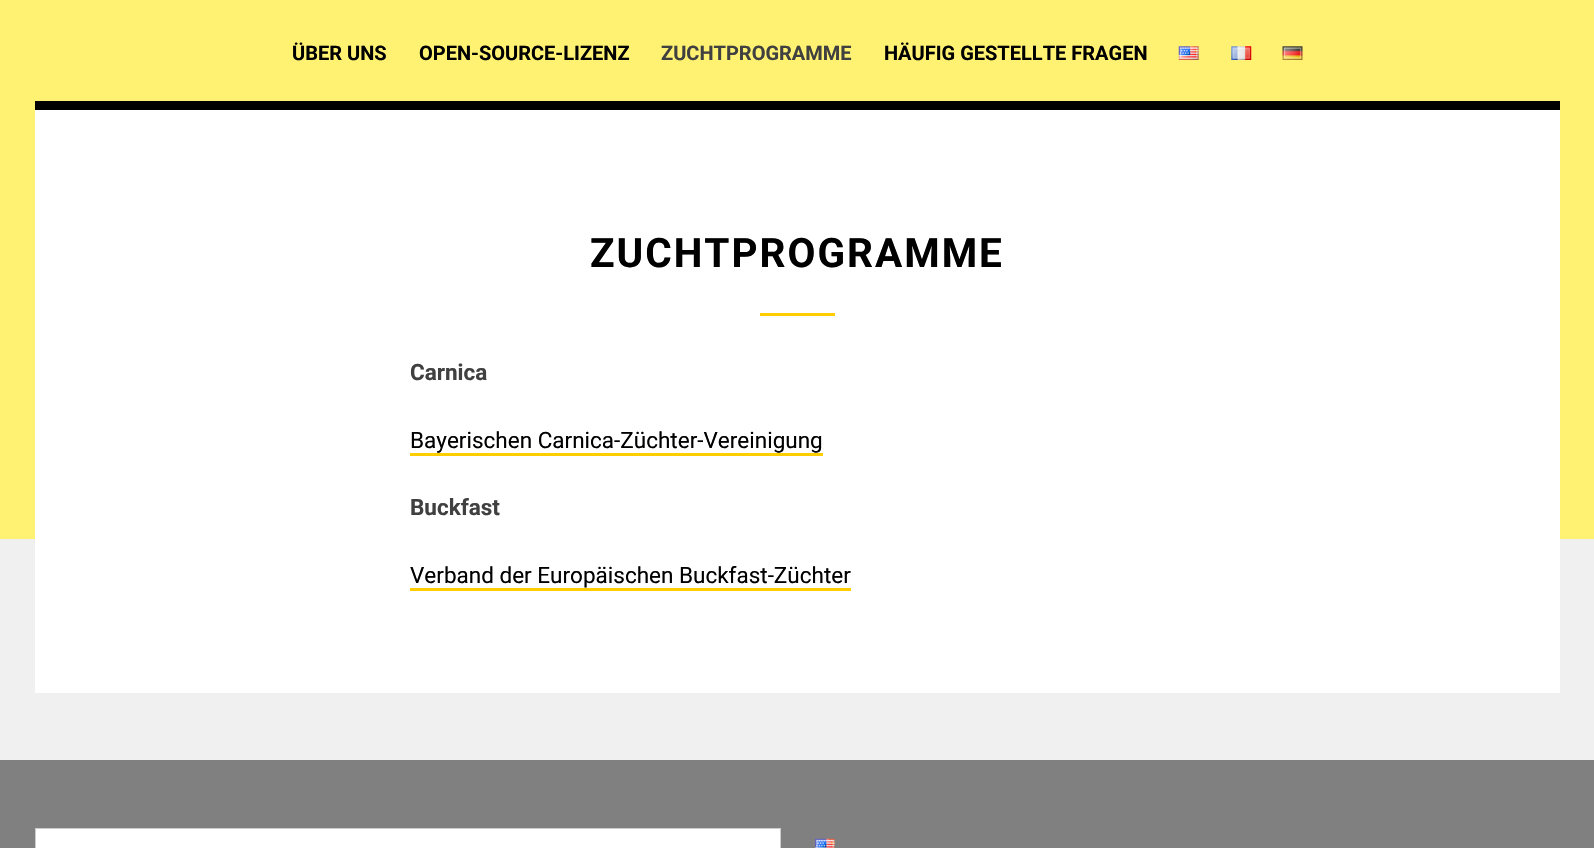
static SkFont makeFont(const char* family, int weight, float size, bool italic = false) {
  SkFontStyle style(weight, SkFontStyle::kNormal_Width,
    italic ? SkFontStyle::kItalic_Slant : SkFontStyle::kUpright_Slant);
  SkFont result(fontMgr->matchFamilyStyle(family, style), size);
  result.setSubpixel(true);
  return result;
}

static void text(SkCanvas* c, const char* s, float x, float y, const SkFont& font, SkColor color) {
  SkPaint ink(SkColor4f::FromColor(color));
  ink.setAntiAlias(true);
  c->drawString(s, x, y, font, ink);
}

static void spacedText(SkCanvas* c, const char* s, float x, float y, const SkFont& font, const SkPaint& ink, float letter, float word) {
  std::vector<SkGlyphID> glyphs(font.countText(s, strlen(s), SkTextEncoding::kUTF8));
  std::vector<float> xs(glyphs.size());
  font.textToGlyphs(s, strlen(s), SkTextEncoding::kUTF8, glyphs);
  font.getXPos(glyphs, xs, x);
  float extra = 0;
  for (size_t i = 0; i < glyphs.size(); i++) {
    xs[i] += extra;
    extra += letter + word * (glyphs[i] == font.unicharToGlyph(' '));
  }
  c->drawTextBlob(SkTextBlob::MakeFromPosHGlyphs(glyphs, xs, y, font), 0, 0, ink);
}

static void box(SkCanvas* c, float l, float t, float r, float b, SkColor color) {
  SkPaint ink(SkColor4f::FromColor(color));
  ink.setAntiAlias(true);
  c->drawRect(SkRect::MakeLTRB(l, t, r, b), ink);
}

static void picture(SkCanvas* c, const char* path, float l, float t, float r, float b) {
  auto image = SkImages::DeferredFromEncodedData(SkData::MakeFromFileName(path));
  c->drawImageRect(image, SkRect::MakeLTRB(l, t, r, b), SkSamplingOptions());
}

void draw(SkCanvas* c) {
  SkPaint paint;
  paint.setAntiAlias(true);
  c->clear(0xfff0f0f0);
  box(c, 0, 0, 1594, 539, 0xfffff273);
  SkFont face1 = makeFont("Roboto", 700, 20);
  text(c, "ÜBER UNS", 292, 60, face1, 0xff000000);
  text(c, "OPEN-SOURCE-LIZENZ", 419, 60, face1, 0xff000000);
  text(c, "ZUCHTPROGRAMME", 661, 60, face1, 0xff404040);
  text(c, "HÄUFIG GESTELLTE FRAGEN", 884, 60, face1, 0xff000000);
  picture(c, "img_01.png", 1178, 46, 1199, 60);
  picture(c, "img_02.png", 1231, 46, 1252, 60);
  picture(c, "img_03.png", 1282, 46, 1303, 60);
  box(c, 35, 110, 1560, 693, 0xffffffff);
  box(c, 35, 101, 1560, 110, 0xff000000);
  SkFont face2 = makeFont("Roboto", 700, 40.5f);
  paint.setColor(0xff000000);
  spacedText(c, "ZUCHTPROGRAMME", 590, 267, face2, paint, 2, 0);
  box(c, 760, 313, 835, 316, 0xffffcd00);
  SkFont face3 = makeFont("Roboto", 700, 22.5f);
  text(c, "Carnica", 410, 380, face3, 0xff404040);
  SkFont face4 = makeFont("Roboto", 400, 22.5f);
  text(c, "Bayerischen Carnica-Züchter-Vereinigung", 410, 448, face4, 0xff000000);
  box(c, 410, 453, 823, 456, 0xffffcd00);
  text(c, "Buckfast", 410, 515, face3, 0xff404040);
  text(c, "Verband der Europäischen Buckfast-Züchter", 410, 583, face4, 0xff000000);
  box(c, 410, 588, 851, 591, 0xffffcd00);
  box(c, 0, 760, 1594, 848, 0xff808080);
  paint.setColor(0xffffffff);
  c->drawRect(SkRect::MakeLTRB(35.5f, 828.5f, 780.5f, 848.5f), paint);
  paint.setStyle(SkPaint::kStroke_Style);
  paint.setStrokeWidth(1);
  paint.setColor(0xffcccccc);
  c->drawRect(SkRect::MakeLTRB(35.5f, 828.5f, 780.5f, 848.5f), paint);
  picture(c, "img_04.png", 815, 838, 835, 848);
}
